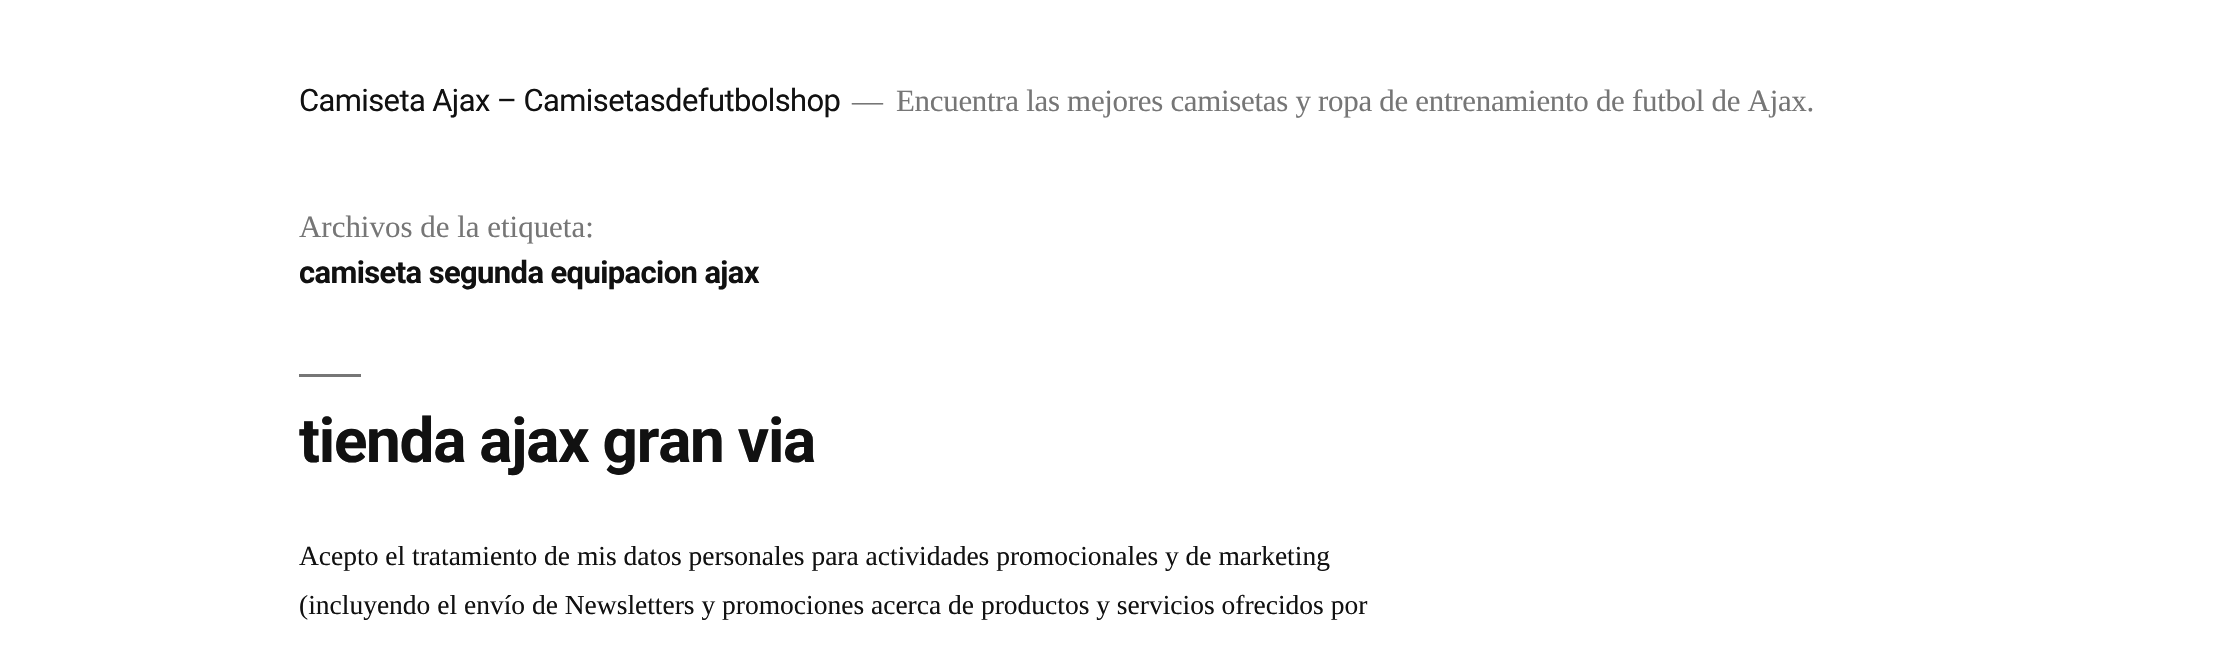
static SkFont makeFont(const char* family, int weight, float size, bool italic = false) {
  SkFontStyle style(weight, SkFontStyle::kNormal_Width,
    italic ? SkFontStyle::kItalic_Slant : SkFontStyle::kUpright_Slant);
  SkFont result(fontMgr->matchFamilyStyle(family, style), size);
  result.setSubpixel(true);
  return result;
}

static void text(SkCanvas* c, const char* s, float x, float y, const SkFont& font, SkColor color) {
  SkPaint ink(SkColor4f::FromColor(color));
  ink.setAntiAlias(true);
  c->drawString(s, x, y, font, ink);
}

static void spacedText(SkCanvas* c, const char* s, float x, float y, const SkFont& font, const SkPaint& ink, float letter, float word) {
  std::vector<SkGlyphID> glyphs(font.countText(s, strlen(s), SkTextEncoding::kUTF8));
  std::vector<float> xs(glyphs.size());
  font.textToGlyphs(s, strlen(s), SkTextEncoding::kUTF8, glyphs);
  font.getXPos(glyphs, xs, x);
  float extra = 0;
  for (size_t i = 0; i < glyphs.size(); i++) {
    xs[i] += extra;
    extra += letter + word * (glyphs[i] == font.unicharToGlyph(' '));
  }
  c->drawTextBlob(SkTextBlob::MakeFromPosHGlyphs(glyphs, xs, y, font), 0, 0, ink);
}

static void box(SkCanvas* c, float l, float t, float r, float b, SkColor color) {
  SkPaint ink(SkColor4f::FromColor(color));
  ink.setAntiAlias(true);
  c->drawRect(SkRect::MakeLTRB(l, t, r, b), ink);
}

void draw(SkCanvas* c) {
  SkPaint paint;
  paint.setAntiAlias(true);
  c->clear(0xffffffff);
  SkFont face1 = makeFont("Roboto", 400, 30.95f);
  paint.setColor(0xff111111);
  spacedText(c, "Camiseta Ajax – Camisetasdefutbolshop", 299, 111, face1, paint, -0.6f, 0);
  SkFont face2 = makeFont("Liberation Serif", 400, 30.95f);
  paint.setColor(0xff767676);
  spacedText(c, "—", 852, 111, face2, paint, -0.3f, 0);
  spacedText(c, "Encuentra las mejores camisetas y ropa de entrenamiento de futbol de Ajax.", 896, 111, face2, paint, -0.3f, 0);
  text(c, "Archivos de la etiqueta:", 299, 237, face2, 0xff767676);
  SkFont face3 = makeFont("Roboto", 700, 30.95f);
  paint.setColor(0xff111111);
  spacedText(c, "camiseta segunda equipacion ajax", 299, 283, face3, paint, -0.6f, 0);
  box(c, 299, 374, 361, 377, 0xff767676);
  SkFont face4 = makeFont("Roboto", 700, 62);
  spacedText(c, "tienda ajax gran via", 299, 462, face4, paint, -1.25f, 0);
  SkFont face5 = makeFont("Liberation Serif", 400, 27.5f);
  text(c, "Acepto el tratamiento de mis datos personales para actividades promocionales y de marketing", 299, 565, face5, 0xff111111);
  text(c, "(incluyendo el envío de Newsletters y promociones acerca de productos y servicios ofrecidos por", 299, 614, face5, 0xff111111);
}
